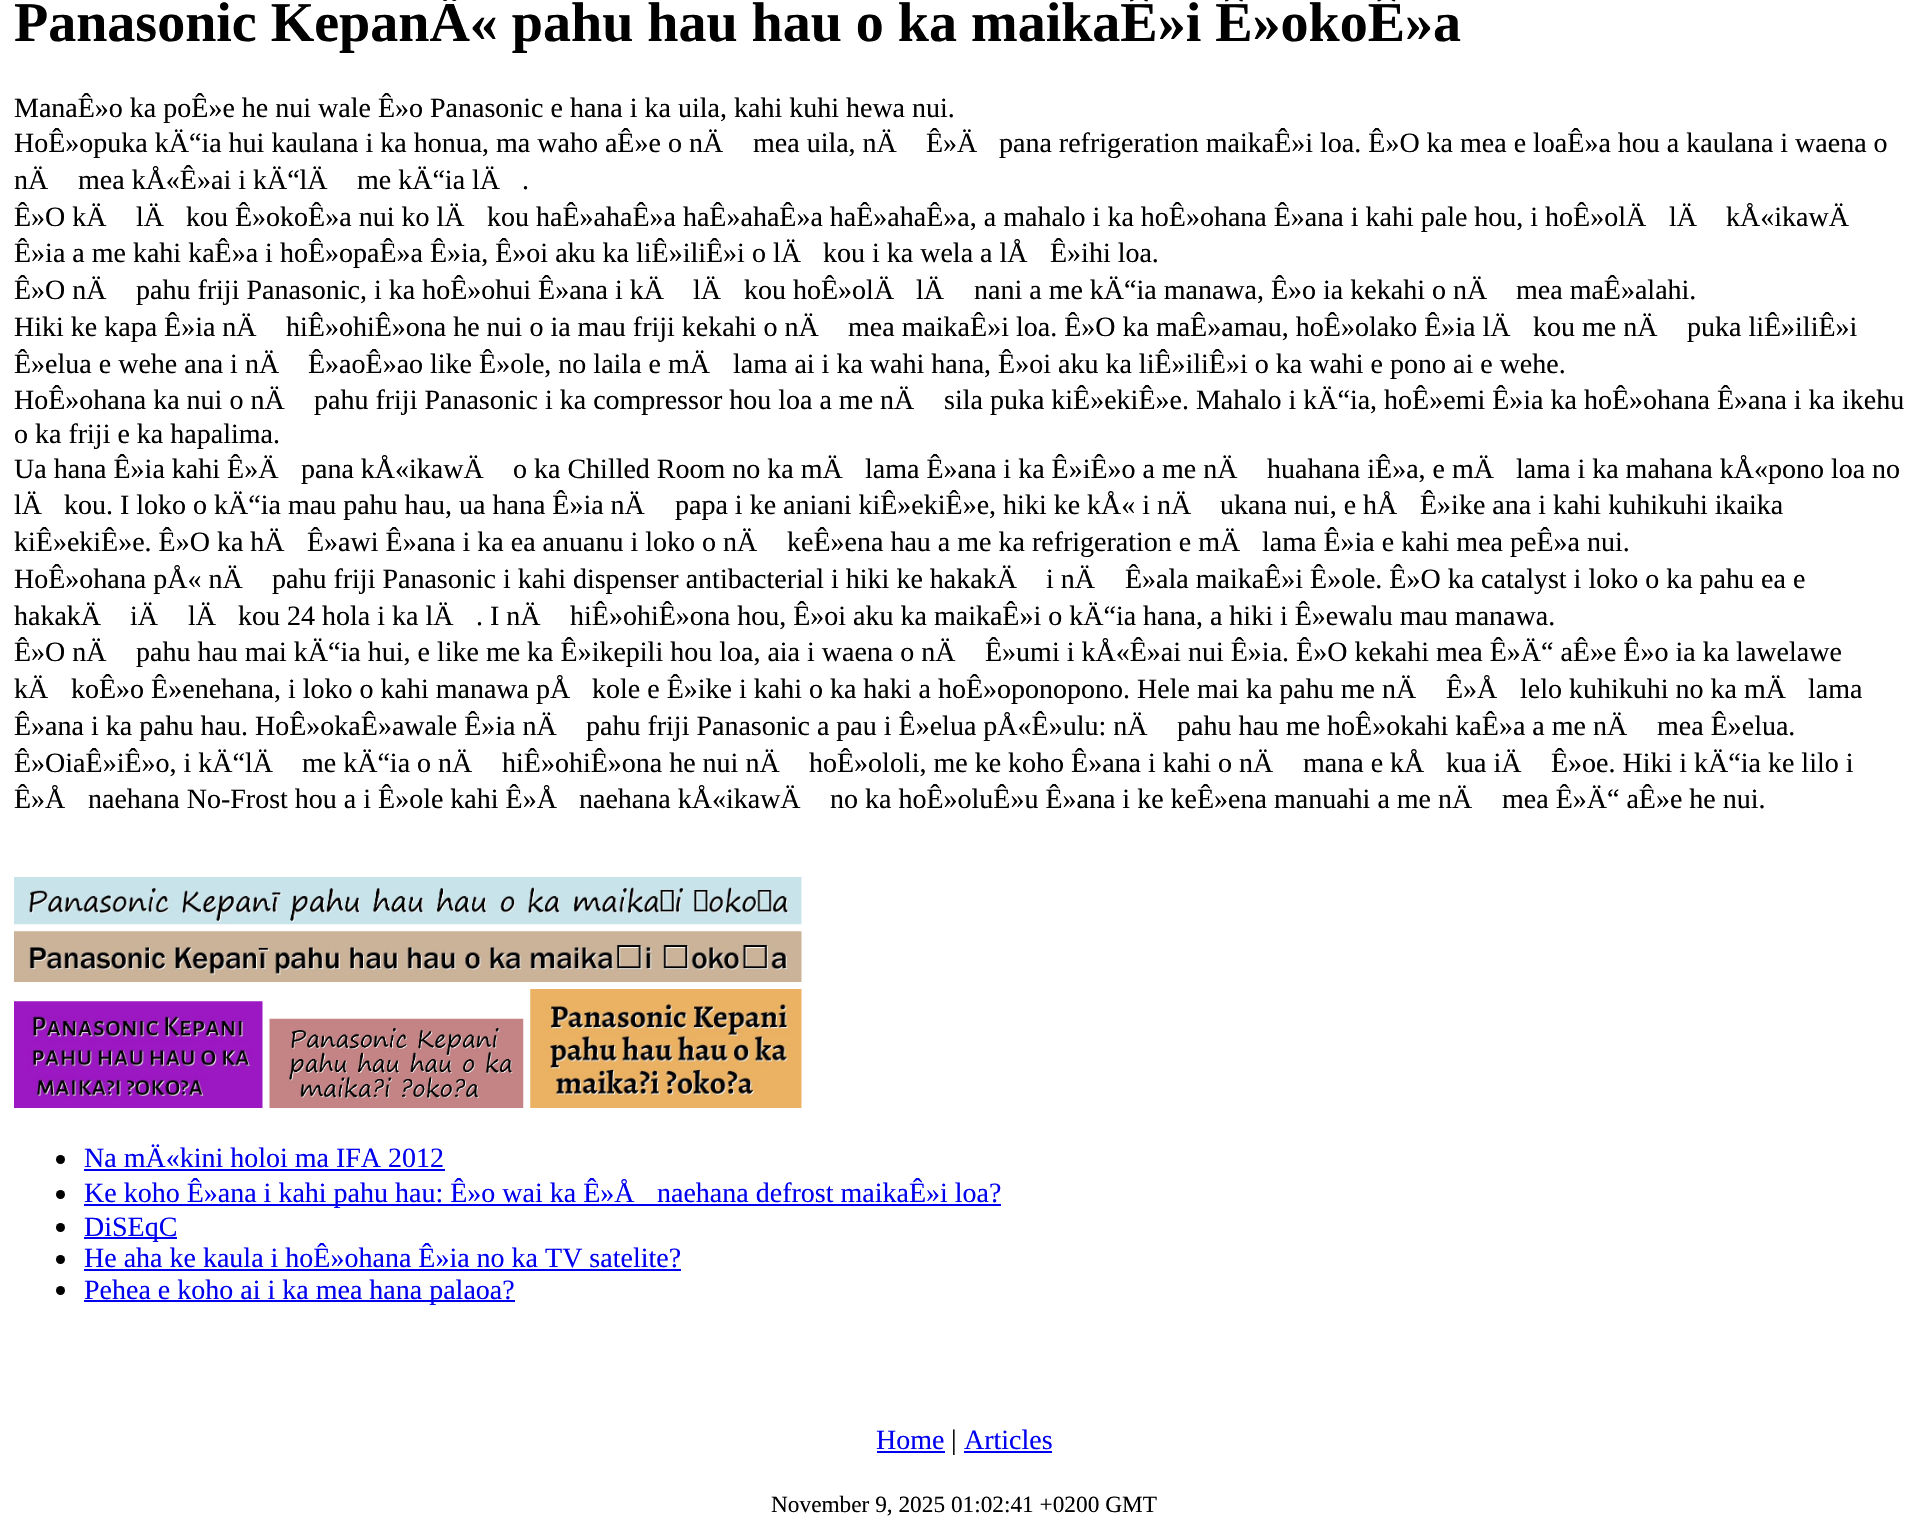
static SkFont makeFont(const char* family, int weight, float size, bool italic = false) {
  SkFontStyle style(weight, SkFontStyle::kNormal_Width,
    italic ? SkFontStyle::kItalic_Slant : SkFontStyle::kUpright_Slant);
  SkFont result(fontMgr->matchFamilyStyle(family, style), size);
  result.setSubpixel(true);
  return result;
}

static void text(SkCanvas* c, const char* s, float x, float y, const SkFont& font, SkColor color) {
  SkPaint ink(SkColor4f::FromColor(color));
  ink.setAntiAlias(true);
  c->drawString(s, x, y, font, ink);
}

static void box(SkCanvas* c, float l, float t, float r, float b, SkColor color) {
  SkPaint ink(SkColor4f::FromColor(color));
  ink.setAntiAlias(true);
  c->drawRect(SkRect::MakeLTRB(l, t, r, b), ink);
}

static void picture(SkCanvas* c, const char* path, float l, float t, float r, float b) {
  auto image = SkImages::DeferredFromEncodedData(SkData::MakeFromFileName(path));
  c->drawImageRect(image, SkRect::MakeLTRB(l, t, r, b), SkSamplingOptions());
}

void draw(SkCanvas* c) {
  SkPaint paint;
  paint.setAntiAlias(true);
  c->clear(0xffffffff);
  SkFont face1 = makeFont("Liberation Serif", 700, 56);
  text(c, "Panasonic KepanÄ« pahu hau hau o ka maikaÊ»i Ê»okoÊ»a", 14, 41, face1, 0xff000000);
  SkFont face2 = makeFont("Liberation Serif", 400, 28);
  text(c, "ManaÊ»o ka poÊ»e he nui wale Ê»o Panasonic e hana i ka uila, kahi kuhi hewa nui.", 14, 117, face2, 0xff000000);
  text(c, "HoÊ»opuka kÄ“ia hui kaulana i ka honua, ma waho aÊ»e o nÄ", 14, 152, face2, 0xff000000);
  text(c, "mea uila, nÄ", 753, 152, face2, 0xff000000);
  text(c, "Ê»Ä", 926, 152, face2, 0xff000000);
  text(c, "pana refrigeration maikaÊ»i loa. Ê»O ka mea e loaÊ»a hou a kaulana i waena o", 999, 152, face2, 0xff000000);
  text(c, "nÄ", 14, 189, face2, 0xff000000);
  text(c, "mea kÅ«Ê»ai i kÄ“lÄ", 78, 189, face2, 0xff000000);
  text(c, "me kÄ“ia lÄ", 357, 189, face2, 0xff000000);
  text(c, ".", 522, 189, face2, 0xff000000);
  text(c, "Ê»O kÄ", 14, 226, face2, 0xff000000);
  text(c, "lÄ", 136, 226, face2, 0xff000000);
  text(c, "kou Ê»okoÊ»a nui ko lÄ", 186, 226, face2, 0xff000000);
  text(c, "kou haÊ»ahaÊ»a haÊ»ahaÊ»a haÊ»ahaÊ»a, a mahalo i ka hoÊ»ohana Ê»ana i kahi pale hou, i hoÊ»olÄ", 487, 226, face2, 0xff000000);
  text(c, "lÄ", 1669, 226, face2, 0xff000000);
  text(c, "kÅ«ikawÄ", 1726, 226, face2, 0xff000000);
  text(c, "Ê»ia a me kahi kaÊ»a i hoÊ»opaÊ»a Ê»ia, Ê»oi aku ka liÊ»iliÊ»i o lÄ", 14, 262, face2, 0xff000000);
  text(c, "kou i ka wela a lÅ", 823, 262, face2, 0xff000000);
  text(c, "Ê»ihi loa.", 1050, 262, face2, 0xff000000);
  text(c, "Ê»O nÄ", 14, 299, face2, 0xff000000);
  text(c, "pahu friji Panasonic, i ka hoÊ»ohui Ê»ana i kÄ", 136, 299, face2, 0xff000000);
  text(c, "lÄ", 693, 299, face2, 0xff000000);
  text(c, "kou hoÊ»olÄ", 744, 299, face2, 0xff000000);
  text(c, "lÄ", 916, 299, face2, 0xff000000);
  text(c, "nani a me kÄ“ia manawa, Ê»o ia kekahi o nÄ", 974, 299, face2, 0xff000000);
  text(c, "mea maÊ»alahi.", 1516, 299, face2, 0xff000000);
  text(c, "Hiki ke kapa Ê»ia nÄ", 14, 336, face2, 0xff000000);
  text(c, "hiÊ»ohiÊ»ona he nui o ia mau friji kekahi o nÄ", 286, 336, face2, 0xff000000);
  text(c, "mea maikaÊ»i loa. Ê»O ka maÊ»amau, hoÊ»olako Ê»ia lÄ", 848, 336, face2, 0xff000000);
  text(c, "kou me nÄ", 1533, 336, face2, 0xff000000);
  text(c, "puka liÊ»iliÊ»i", 1687, 336, face2, 0xff000000);
  text(c, "Ê»elua e wehe ana i nÄ", 14, 373, face2, 0xff000000);
  text(c, "Ê»aoÊ»ao like Ê»ole, no laila e mÄ", 308, 373, face2, 0xff000000);
  text(c, "lama ai i ka wahi hana, Ê»oi aku ka liÊ»iliÊ»i o ka wahi e pono ai e wehe.", 733, 373, face2, 0xff000000);
  text(c, "HoÊ»ohana ka nui o nÄ", 14, 409, face2, 0xff000000);
  text(c, "pahu friji Panasonic i ka compressor hou loa a me nÄ", 314, 409, face2, 0xff000000);
  text(c, "sila puka kiÊ»ekiÊ»e. Mahalo i kÄ“ia, hoÊ»emi Ê»ia ka hoÊ»ohana Ê»ana i ka ikehu", 944, 409, face2, 0xff000000);
  text(c, "o ka friji e ka hapalima.", 14, 443, face2, 0xff000000);
  text(c, "Ua hana Ê»ia kahi Ê»Ä", 14, 478, face2, 0xff000000);
  text(c, "pana kÅ«ikawÄ", 301, 478, face2, 0xff000000);
  text(c, "o ka Chilled Room no ka mÄ", 513, 478, face2, 0xff000000);
  text(c, "lama Ê»ana i ka Ê»iÊ»o a me nÄ", 865, 478, face2, 0xff000000);
  text(c, "huahana iÊ»a, e mÄ", 1267, 478, face2, 0xff000000);
  text(c, "lama i ka mahana kÅ«pono loa no", 1516, 478, face2, 0xff000000);
  text(c, "lÄ", 14, 514, face2, 0xff000000);
  text(c, "kou. I loko o kÄ“ia mau pahu hau, ua hana Ê»ia nÄ", 64, 514, face2, 0xff000000);
  text(c, "papa i ke aniani kiÊ»ekiÊ»e, hiki ke kÅ« i nÄ", 675, 514, face2, 0xff000000);
  text(c, "ukana nui, e hÅ", 1220, 514, face2, 0xff000000);
  text(c, "Ê»ike ana i kahi kuhikuhi ikaika", 1420, 514, face2, 0xff000000);
  text(c, "kiÊ»ekiÊ»e. Ê»O ka hÄ", 14, 551, face2, 0xff000000);
  text(c, "Ê»awi Ê»ana i ka ea anuanu i loko o nÄ", 307, 551, face2, 0xff000000);
  text(c, "keÊ»ena hau a me ka refrigeration e mÄ", 787, 551, face2, 0xff000000);
  text(c, "lama Ê»ia e kahi mea peÊ»a nui.", 1262, 551, face2, 0xff000000);
  text(c, "HoÊ»ohana pÅ« nÄ", 14, 588, face2, 0xff000000);
  text(c, "pahu friji Panasonic i kahi dispenser antibacterial i hiki ke hakakÄ", 272, 588, face2, 0xff000000);
  text(c, "i nÄ", 1046, 588, face2, 0xff000000);
  text(c, "Ê»ala maikaÊ»i Ê»ole. Ê»O ka catalyst i loko o ka pahu ea e", 1125, 588, face2, 0xff000000);
  text(c, "hakakÄ", 14, 625, face2, 0xff000000);
  text(c, "iÄ", 130, 625, face2, 0xff000000);
  text(c, "lÄ", 188, 625, face2, 0xff000000);
  text(c, "kou 24 hola i ka lÄ", 238, 625, face2, 0xff000000);
  text(c, ". I nÄ", 476, 625, face2, 0xff000000);
  text(c, "hiÊ»ohiÊ»ona hou, Ê»oi aku ka maikaÊ»i o kÄ“ia hana, a hiki i Ê»ewalu mau manawa.", 570, 625, face2, 0xff000000);
  text(c, "Ê»O nÄ", 14, 661, face2, 0xff000000);
  text(c, "pahu hau mai kÄ“ia hui, e like me ka Ê»ikepili hou loa, aia i waena o nÄ", 136, 661, face2, 0xff000000);
  text(c, "Ê»umi i kÅ«Ê»ai nui Ê»ia. Ê»O kekahi mea Ê»Ä“ aÊ»e Ê»o ia ka lawelawe", 985, 661, face2, 0xff000000);
  text(c, "kÄ", 14, 698, face2, 0xff000000);
  text(c, "koÊ»o Ê»enehana, i loko o kahi manawa pÅ", 71, 698, face2, 0xff000000);
  text(c, "kole e Ê»ike i kahi o ka haki a hoÊ»oponopono. Hele mai ka pahu me nÄ", 592, 698, face2, 0xff000000);
  text(c, "Ê»Å", 1446, 698, face2, 0xff000000);
  text(c, "lelo kuhikuhi no ka mÄ", 1520, 698, face2, 0xff000000);
  text(c, "lama", 1808, 698, face2, 0xff000000);
  text(c, "Ê»ana i ka pahu hau. HoÊ»okaÊ»awale Ê»ia nÄ", 14, 735, face2, 0xff000000);
  text(c, "pahu friji Panasonic a pau i Ê»elua pÅ«Ê»ulu: nÄ", 586, 735, face2, 0xff000000);
  text(c, "pahu hau me hoÊ»okahi kaÊ»a a me nÄ", 1177, 735, face2, 0xff000000);
  text(c, "mea Ê»elua.", 1657, 735, face2, 0xff000000);
  text(c, "Ê»OiaÊ»iÊ»o, i kÄ“lÄ", 14, 772, face2, 0xff000000);
  text(c, "me kÄ“ia o nÄ", 302, 772, face2, 0xff000000);
  text(c, "hiÊ»ohiÊ»ona he nui nÄ", 502, 772, face2, 0xff000000);
  text(c, "hoÊ»ololi, me ke koho Ê»ana i kahi o nÄ", 809, 772, face2, 0xff000000);
  text(c, "mana e kÅ", 1303, 772, face2, 0xff000000);
  text(c, "kua iÄ", 1446, 772, face2, 0xff000000);
  text(c, "Ê»oe. Hiki i kÄ“ia ke lilo i", 1551, 772, face2, 0xff000000);
  text(c, "Ê»Å", 14, 808, face2, 0xff000000);
  text(c, "naehana No-Frost hou a i Ê»ole kahi Ê»Å", 88, 808, face2, 0xff000000);
  text(c, "naehana kÅ«ikawÄ", 579, 808, face2, 0xff000000);
  text(c, "no ka hoÊ»oluÊ»u Ê»ana i ke keÊ»ena manuahi a me nÄ", 830, 808, face2, 0xff000000);
  text(c, "mea Ê»Ä“ aÊ»e he nui.", 1502, 808, face2, 0xff000000);
  picture(c, "img_01.png", 14, 877, 802, 925);
  picture(c, "img_02.png", 14, 931, 802, 982);
  picture(c, "img_03.png", 14, 1001, 263, 1108);
  picture(c, "img_04.png", 269, 1018, 524, 1108);
  picture(c, "img_05.png", 530, 989, 802, 1108);
  paint.setColor(0xff000000);
  c->drawCircle(60.5f, 1159.5f, 4.5f, paint);
  text(c, "Na mÄ«kini holoi ma IFA 2012", 84, 1167, face2, 0xff0000ee);
  box(c, 84, 1169, 445, 1171, 0xff0000ee);
  c->drawCircle(60.5f, 1194.5f, 4.5f, paint);
  box(c, 84, 1204, 1001, 1206, 0xff0000ee);
  text(c, "Ke koho Ê»ana i kahi pahu hau: Ê»o wai ka Ê»Å", 84, 1202, face2, 0xff0000ee);
  text(c, "naehana defrost maikaÊ»i loa?", 657, 1202, face2, 0xff0000ee);
  c->drawCircle(60.5f, 1227.5f, 4.5f, paint);
  box(c, 84, 1237, 177, 1239, 0xff0000ee);
  text(c, "DiSEqC", 84, 1236, face2, 0xff0000ee);
  c->drawCircle(60.5f, 1259.5f, 4.5f, paint);
  text(c, "He aha ke kaula i hoÊ»ohana Ê»ia no ka TV satelite?", 84, 1267, face2, 0xff0000ee);
  box(c, 84, 1269, 681, 1271, 0xff0000ee);
  c->drawCircle(60.5f, 1290.5f, 4.5f, paint);
  box(c, 84, 1300, 515, 1302, 0xff0000ee);
  text(c, "Pehea e koho ai i ka mea hana palaoa?", 84, 1299, face2, 0xff0000ee);
  text(c, "Home", 876, 1449, face2, 0xff0000ee);
  box(c, 877, 1451, 945, 1453, 0xff0000ee);
  text(c, "|", 951, 1449, face2, 0xff000000);
  text(c, "Articles", 964, 1449, face2, 0xff0000ee);
  box(c, 964, 1451, 1052, 1453, 0xff0000ee);
  SkFont face3 = makeFont("Liberation Serif", 400, 23.3f);
  text(c, "November 9, 2025 01:02:41 +0200 GMT", 771, 1512, face3, 0xff000000);
}
